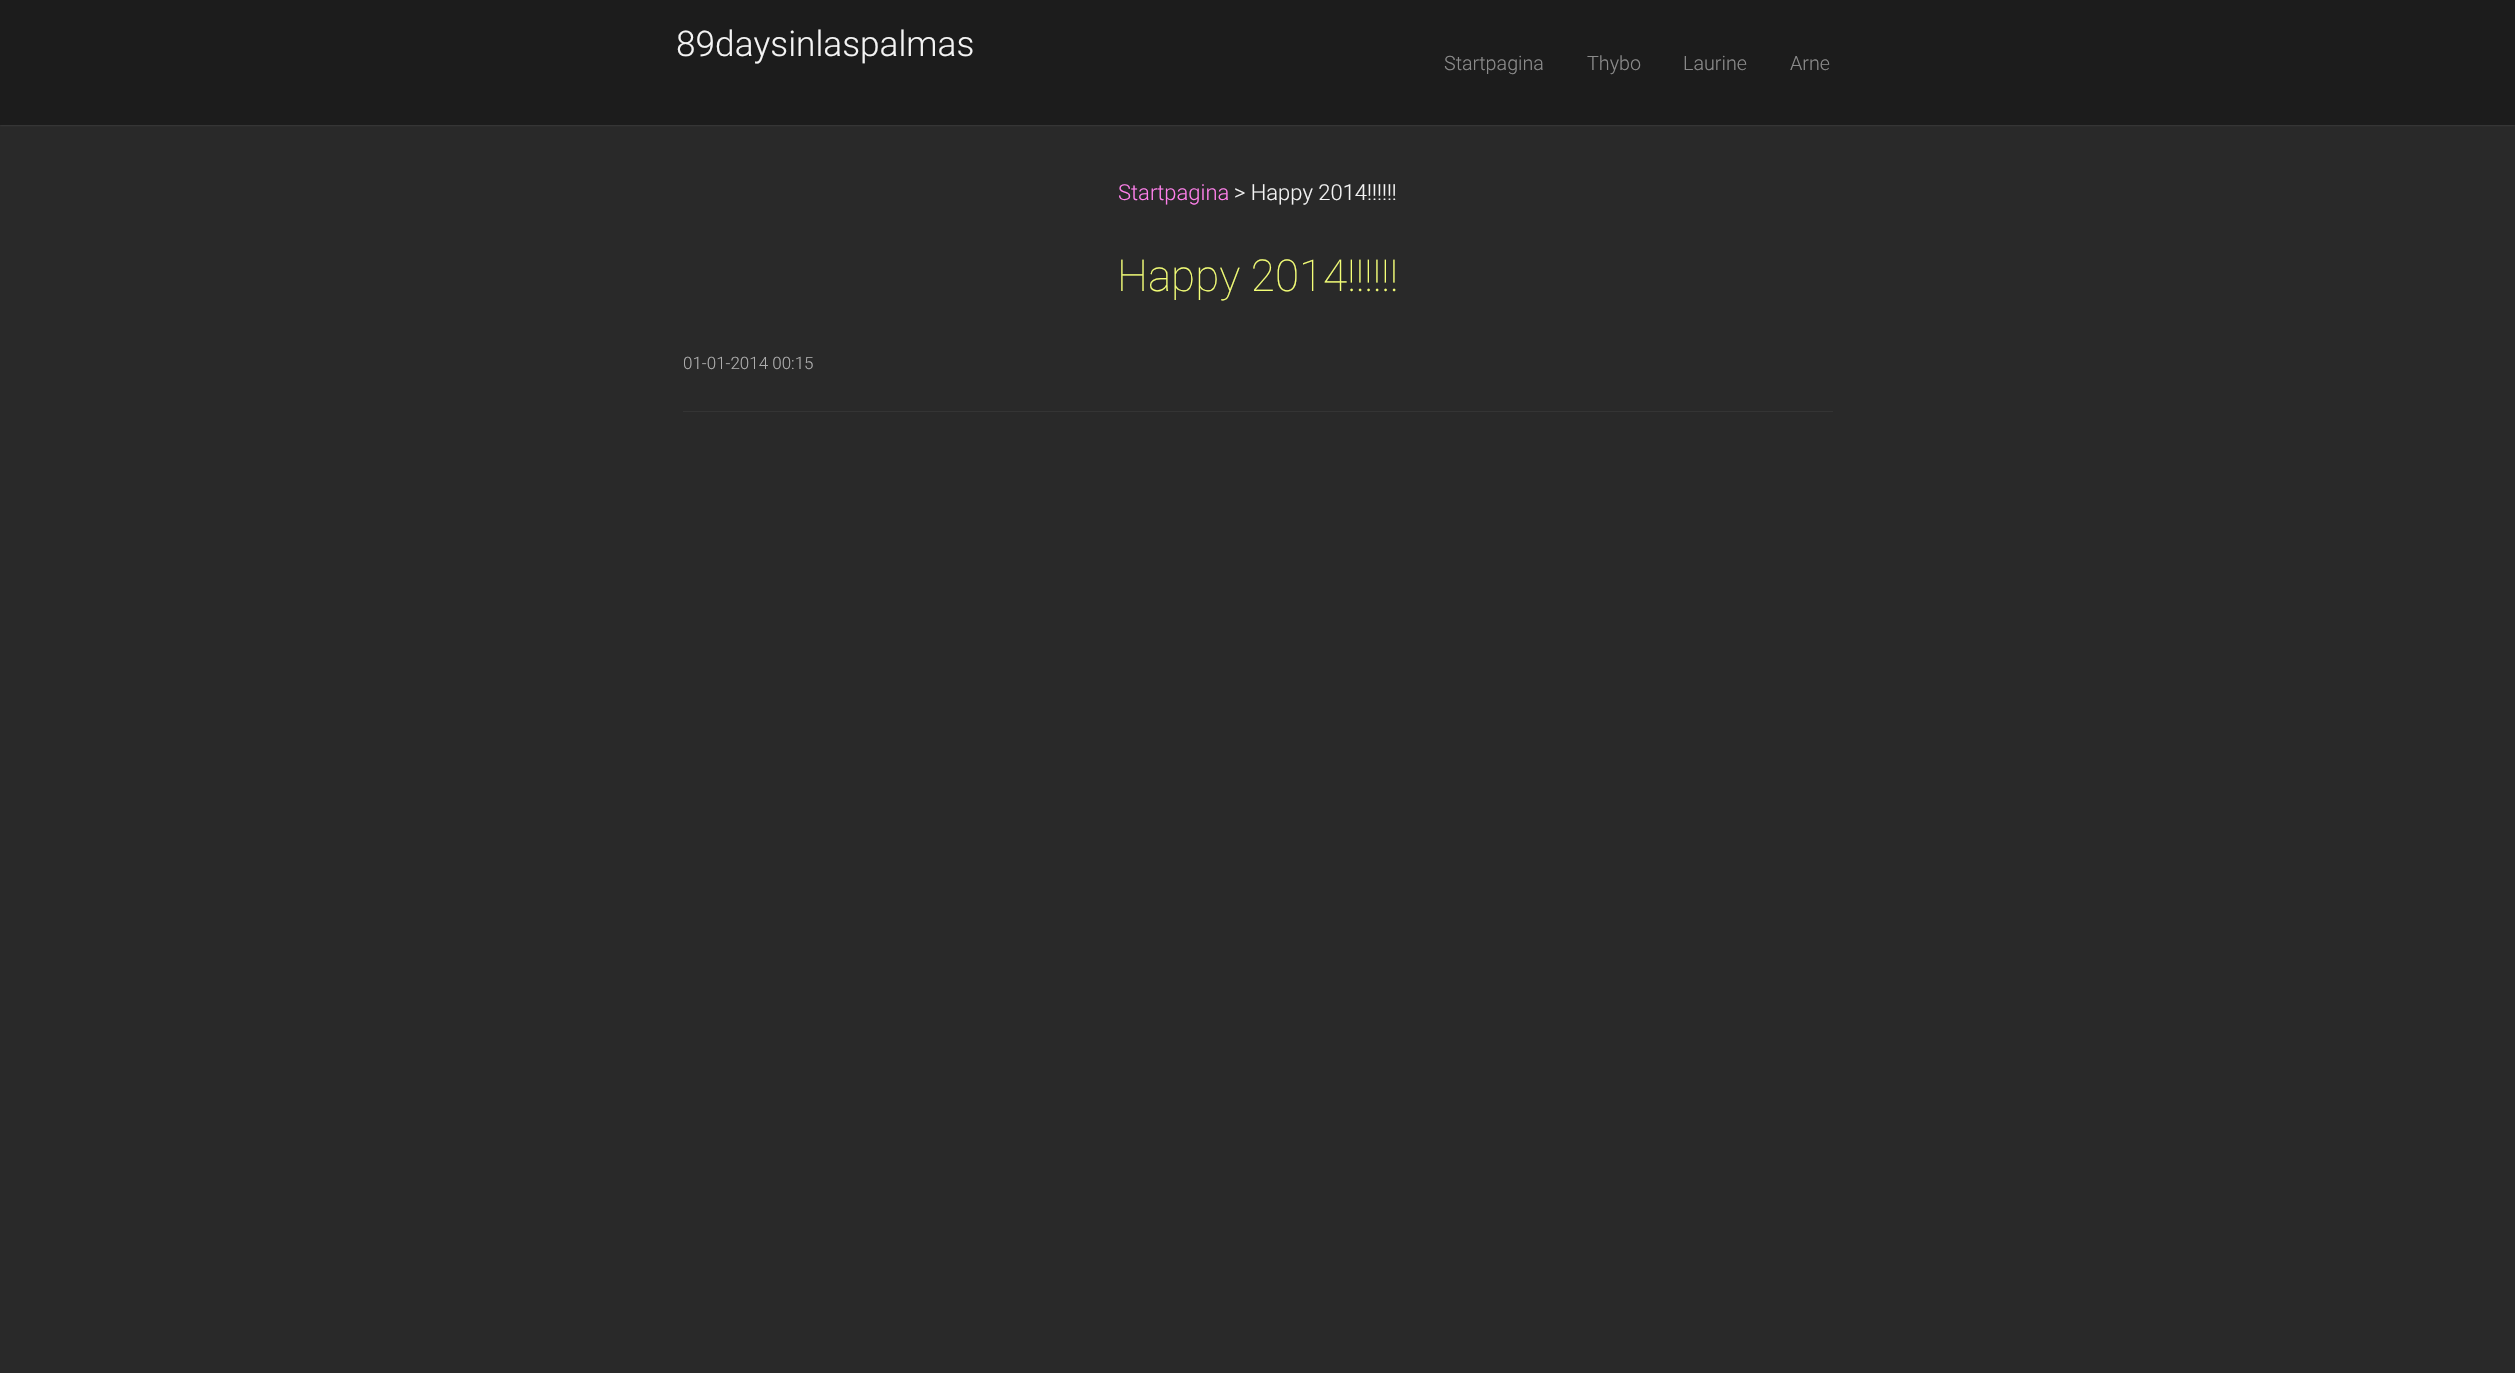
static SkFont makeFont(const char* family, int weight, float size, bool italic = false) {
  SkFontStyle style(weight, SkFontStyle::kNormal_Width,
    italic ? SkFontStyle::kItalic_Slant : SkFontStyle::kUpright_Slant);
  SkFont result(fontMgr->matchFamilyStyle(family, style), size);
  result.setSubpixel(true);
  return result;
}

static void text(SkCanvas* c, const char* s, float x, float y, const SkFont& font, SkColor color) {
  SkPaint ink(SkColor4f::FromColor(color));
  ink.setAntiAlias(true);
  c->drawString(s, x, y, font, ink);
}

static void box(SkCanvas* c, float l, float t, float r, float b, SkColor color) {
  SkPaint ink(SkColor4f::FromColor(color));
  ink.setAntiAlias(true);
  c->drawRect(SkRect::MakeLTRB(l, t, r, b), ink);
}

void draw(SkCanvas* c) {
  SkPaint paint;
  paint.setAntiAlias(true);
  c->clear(0xff292929);
  paint.setColor(0xff4c4c4c);
  paint.setMaskFilter(SkMaskFilter::MakeBlur(kNormal_SkBlurStyle, 1));
  c->drawRect(SkRect::MakeLTRB(0, 0, 2515, 125), paint);
  paint.setMaskFilter(nullptr);
  box(c, 0, 0, 2515, 125, 0xff1c1c1c);
  SkFont face1 = makeFont("Roboto", 300, 35.25f);
  text(c, "89daysinlaspalmas", 676, 56, face1, 0xfff4f4f4);
  SkFont face2 = makeFont("Roboto", 300, 19.75f);
  text(c, "Startpagina", 1444, 70, face2, 0xff8a8a8a);
  text(c, "Thybo", 1587, 70, face2, 0xff8a8a8a);
  text(c, "Laurine", 1683, 70, face2, 0xff8a8a8a);
  text(c, "Arne", 1790, 70, face2, 0xff8a8a8a);
  SkFont face3 = makeFont("Roboto", 300, 22);
  text(c, "Startpagina", 1118, 200, face3, 0xffff80eb);
  text(c, "> Happy 2014!!!!!!", 1234, 200, face3, 0xfff4f4f4);
  SkFont face4 = makeFont("Roboto", 100, 44);
  text(c, "Happy 2014!!!!!!", 1117, 291, face4, 0xfff4ff77);
  SkFont face5 = makeFont("Roboto", 300, 17);
  text(c, "01-01-2014 00:15", 683, 369, face5, 0xffaeaeae);
  box(c, 683, 411, 1833, 412, 0xff343434);
}
